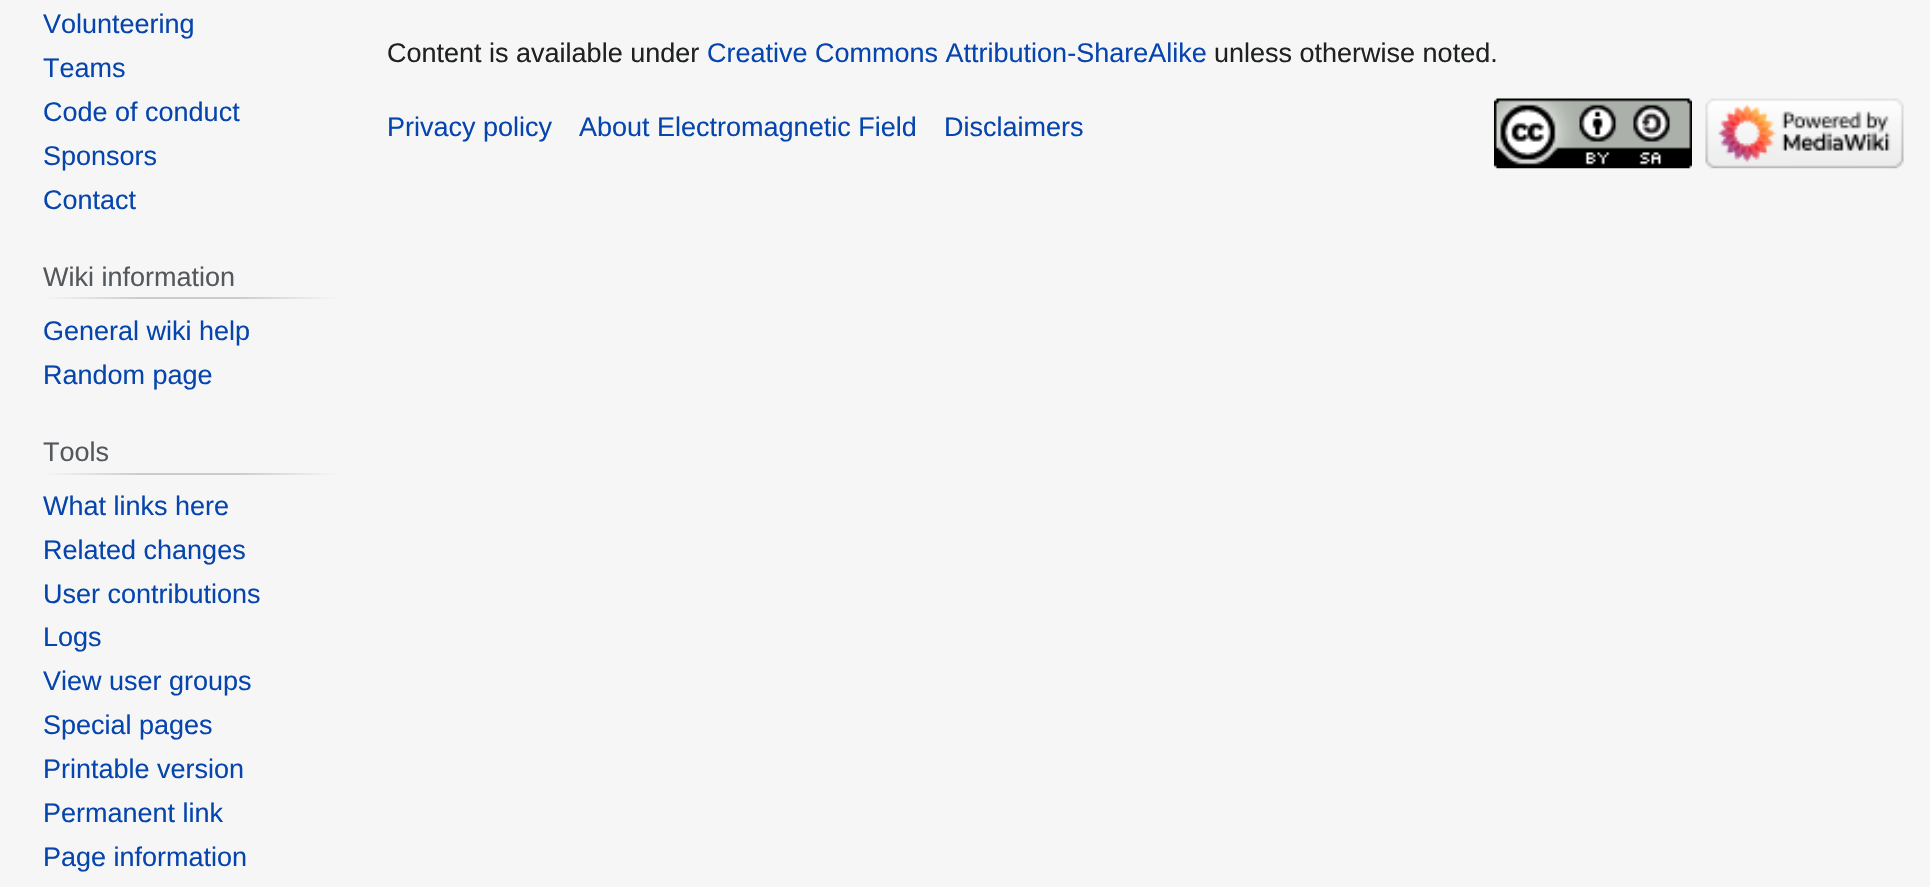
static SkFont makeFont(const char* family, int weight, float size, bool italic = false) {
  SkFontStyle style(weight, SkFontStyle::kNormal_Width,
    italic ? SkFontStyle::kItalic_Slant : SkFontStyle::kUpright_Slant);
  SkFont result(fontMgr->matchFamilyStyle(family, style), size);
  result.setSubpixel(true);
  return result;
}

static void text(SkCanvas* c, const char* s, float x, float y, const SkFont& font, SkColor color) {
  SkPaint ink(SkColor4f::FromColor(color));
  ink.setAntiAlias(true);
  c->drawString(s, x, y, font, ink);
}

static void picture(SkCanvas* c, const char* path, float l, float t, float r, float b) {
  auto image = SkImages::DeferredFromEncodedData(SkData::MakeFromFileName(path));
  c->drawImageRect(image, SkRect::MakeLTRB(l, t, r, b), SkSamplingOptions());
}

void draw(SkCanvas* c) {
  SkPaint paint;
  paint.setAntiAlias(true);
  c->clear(0xfff6f6f6);
  SkFont face1 = makeFont("Liberation Sans", 400, 27);
  text(c, "Volunteering", 43, 33, face1, 0xff0645ad);
  text(c, "Teams", 43, 77, face1, 0xff0645ad);
  text(c, "Code of conduct", 43, 121, face1, 0xff0645ad);
  text(c, "Sponsors", 43, 165, face1, 0xff0645ad);
  text(c, "Contact", 43, 209, face1, 0xff0645ad);
  {
    const SkColor colors[] = {0xfff6f6f6, 0xffc8ccd1, 0xffc8ccd1, 0xfff6f6f6};
    const float stops[] = {0, 0.33f, 0.66f, 1};
    const SkPoint ends[] = {{43, 298}, {338, 298}};
    paint.setShader(SkGradientShader::MakeLinear(ends, colors, stops, 4, SkTileMode::kClamp));
    paint.setAlpha(255);
  }
  c->drawRect(SkRect::MakeLTRB(43, 297, 338, 299), paint);
  text(c, "Wiki information", 43, 286, face1, 0xff54595d);
  text(c, "General wiki help", 43, 340, face1, 0xff0645ad);
  text(c, "Random page", 43, 384, face1, 0xff0645ad);
  {
    const SkColor colors[] = {0xfff6f6f6, 0xffc8ccd1, 0xffc8ccd1, 0xfff6f6f6};
    const float stops[] = {0, 0.33f, 0.66f, 1};
    const SkPoint ends[] = {{43, 474}, {338, 474}};
    paint.setShader(SkGradientShader::MakeLinear(ends, colors, stops, 4, SkTileMode::kClamp));
    paint.setAlpha(255);
  }
  c->drawRect(SkRect::MakeLTRB(43, 473, 338, 475), paint);
  text(c, "Tools", 43, 461, face1, 0xff54595d);
  text(c, "What links here", 43, 515, face1, 0xff0645ad);
  text(c, "Related changes", 43, 559, face1, 0xff0645ad);
  text(c, "User contributions", 43, 603, face1, 0xff0645ad);
  text(c, "Logs", 43, 646, face1, 0xff0645ad);
  text(c, "View user groups", 43, 690, face1, 0xff0645ad);
  text(c, "Special pages", 43, 734, face1, 0xff0645ad);
  text(c, "Printable version", 43, 778, face1, 0xff0645ad);
  text(c, "Permanent link", 43, 822, face1, 0xff0645ad);
  text(c, "Page information", 43, 866, face1, 0xff0645ad);
  text(c, "Content is available under", 387, 62, face1, 0xff202122);
  text(c, "Creative Commons Attribution-ShareAlike", 707, 62, face1, 0xff0645ad);
  text(c, "unless otherwise noted.", 1214, 62, face1, 0xff202122);
  text(c, "Privacy policy", 387, 136, face1, 0xff0645ad);
  text(c, "About Electromagnetic Field", 579, 136, face1, 0xff0645ad);
  text(c, "Disclaimers", 944, 136, face1, 0xff0645ad);
  picture(c, "img_01.png", 1494, 98, 1692, 169);
  picture(c, "img_02.png", 1705, 98, 1904, 169);
}
